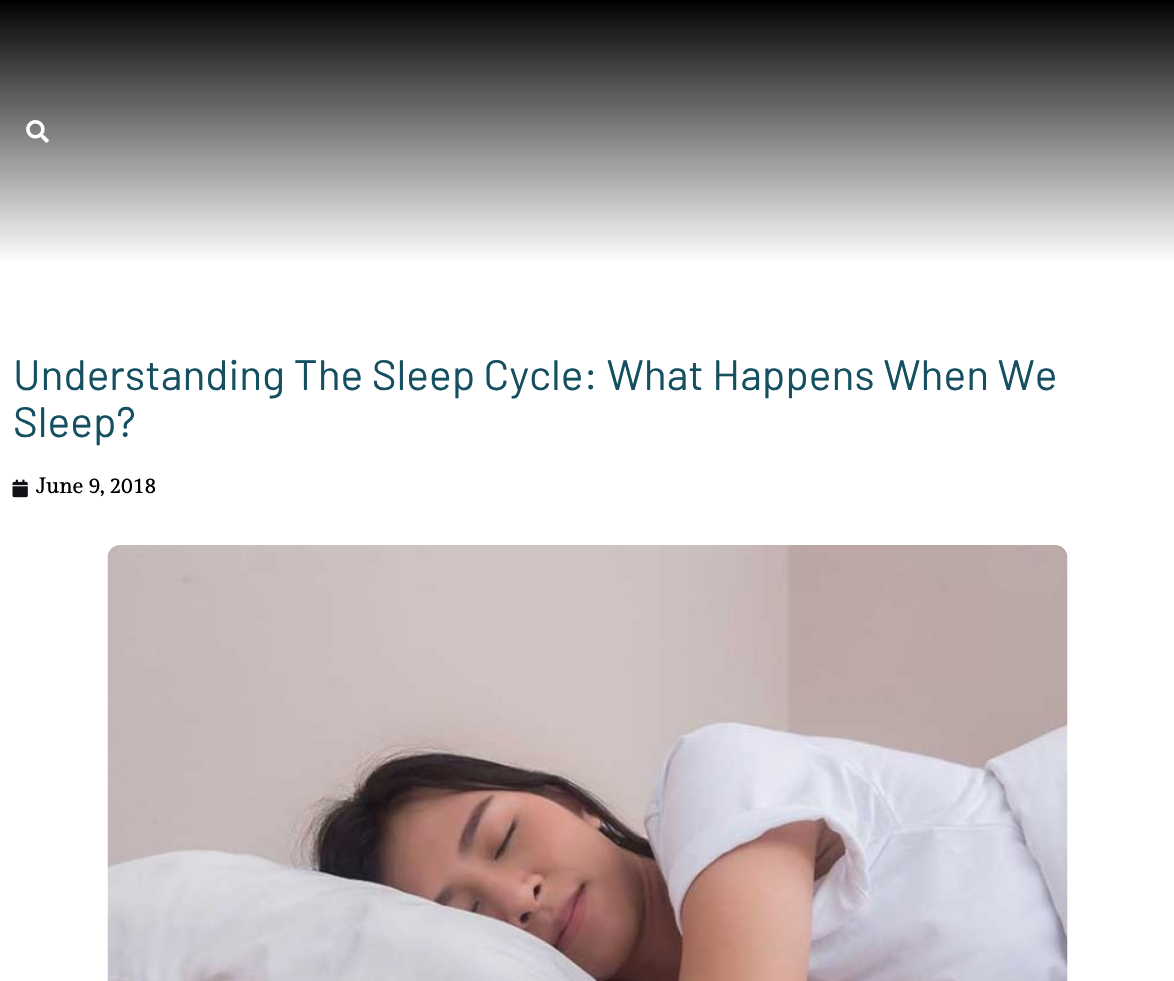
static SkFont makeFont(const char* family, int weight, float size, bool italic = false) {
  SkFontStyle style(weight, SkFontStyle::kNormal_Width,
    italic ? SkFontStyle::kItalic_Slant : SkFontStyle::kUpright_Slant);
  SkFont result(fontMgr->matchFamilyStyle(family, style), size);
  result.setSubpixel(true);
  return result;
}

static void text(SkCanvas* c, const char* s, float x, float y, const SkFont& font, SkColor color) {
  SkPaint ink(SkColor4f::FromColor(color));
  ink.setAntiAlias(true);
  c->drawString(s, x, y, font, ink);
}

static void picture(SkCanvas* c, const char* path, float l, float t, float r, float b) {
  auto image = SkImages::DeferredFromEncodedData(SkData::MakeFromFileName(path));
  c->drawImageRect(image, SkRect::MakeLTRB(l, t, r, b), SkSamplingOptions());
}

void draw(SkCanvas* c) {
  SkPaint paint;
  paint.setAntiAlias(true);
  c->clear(0xffffffff);
  {
    const SkColor colors[] = {0xff000000, 0xffffffff};
    const float stops[] = {0, 1};
    const SkPoint ends[] = {{588, 0}, {588, 263}};
    paint.setShader(SkGradientShader::MakeLinear(ends, colors, stops, 2, SkTileMode::kClamp));
    paint.setAlpha(255);
  }
  c->drawRect(SkRect::MakeLTRB(0, 0, 1174, 260), paint);
  picture(c, "img_01.png", 26, 120, 49, 143);
  SkFont face1 = makeFont("Barlow", 400, 42.5f);
  text(c, "Understanding The Sleep Cycle: What Happens When We", 13, 390, face1, 0xff155061);
  text(c, "Sleep?", 13, 437, face1, 0xff155061);
  picture(c, "img_02.png", 12, 479, 28, 498);
  SkFont face2 = makeFont("Gilda Display", 700, 21.25f);
  text(c, "June 9, 2018", 36, 493, face2, 0xff000000);
  picture(c, "img_03.png", 107, 545, 1068, 981);
}
